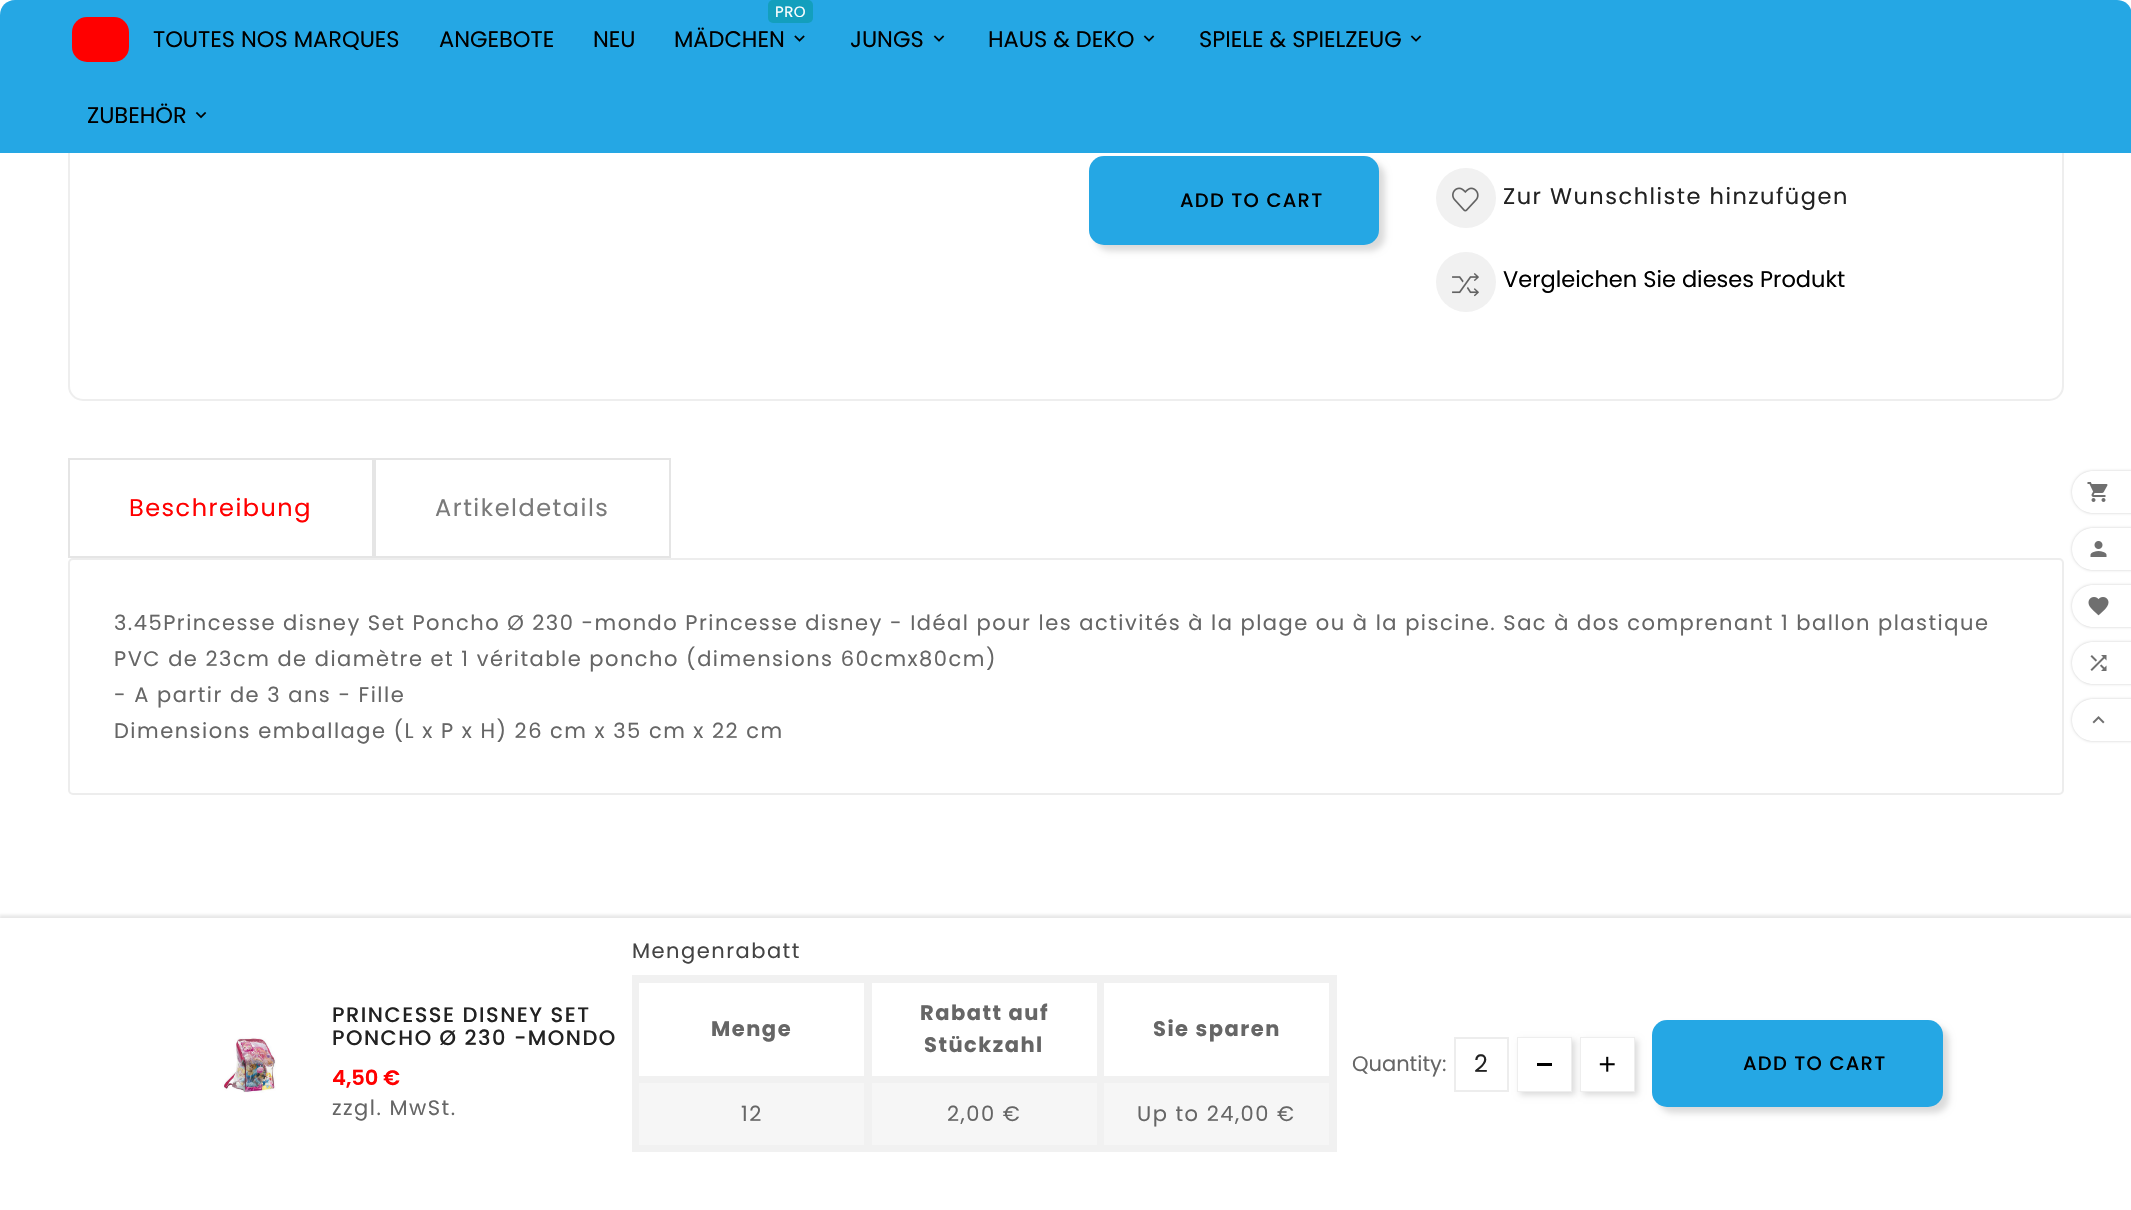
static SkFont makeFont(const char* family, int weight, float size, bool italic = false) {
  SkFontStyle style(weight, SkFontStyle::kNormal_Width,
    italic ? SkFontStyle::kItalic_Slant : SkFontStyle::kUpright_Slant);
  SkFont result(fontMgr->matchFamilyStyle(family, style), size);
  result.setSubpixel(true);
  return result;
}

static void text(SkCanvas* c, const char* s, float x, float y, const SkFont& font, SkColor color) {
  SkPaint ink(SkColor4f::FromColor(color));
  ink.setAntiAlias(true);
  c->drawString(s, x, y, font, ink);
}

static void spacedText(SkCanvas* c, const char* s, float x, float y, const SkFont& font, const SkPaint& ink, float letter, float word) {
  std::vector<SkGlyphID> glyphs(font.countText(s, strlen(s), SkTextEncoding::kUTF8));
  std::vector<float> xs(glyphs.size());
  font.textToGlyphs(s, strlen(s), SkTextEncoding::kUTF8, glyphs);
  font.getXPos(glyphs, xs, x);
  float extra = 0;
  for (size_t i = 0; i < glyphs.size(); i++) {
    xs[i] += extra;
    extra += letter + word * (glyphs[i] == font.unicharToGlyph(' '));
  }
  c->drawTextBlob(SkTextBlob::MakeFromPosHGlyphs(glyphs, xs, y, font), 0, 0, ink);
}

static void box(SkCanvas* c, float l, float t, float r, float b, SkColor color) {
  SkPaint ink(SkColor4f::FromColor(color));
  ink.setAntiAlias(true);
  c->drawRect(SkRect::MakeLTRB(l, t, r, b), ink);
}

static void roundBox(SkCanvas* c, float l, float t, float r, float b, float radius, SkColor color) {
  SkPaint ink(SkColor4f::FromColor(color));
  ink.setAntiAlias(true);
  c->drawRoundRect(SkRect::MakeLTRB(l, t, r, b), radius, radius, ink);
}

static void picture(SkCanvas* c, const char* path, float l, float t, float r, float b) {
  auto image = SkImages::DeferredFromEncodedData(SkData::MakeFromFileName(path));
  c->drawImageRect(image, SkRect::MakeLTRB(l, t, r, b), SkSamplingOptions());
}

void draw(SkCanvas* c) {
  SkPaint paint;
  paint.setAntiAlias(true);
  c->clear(0xffffffff);
  paint.setStyle(SkPaint::kStroke_Style);
  paint.setStrokeWidth(2);
  paint.setColor(0xffeeeeee);
  c->drawRoundRect(SkRect::MakeLTRB(69, -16, 2063, 400), 14, 14, paint);
  paint.setStyle(SkPaint::kFill_Style);
  paint.setColor(0x24000000);
  paint.setMaskFilter(SkMaskFilter::MakeBlur(kNormal_SkBlurStyle, 3));
  c->drawRoundRect(SkRect::MakeLTRB(1095, 162, 1385, 251), 15, 15, paint);
  paint.setMaskFilter(nullptr);
  paint.setColor(0xff25a7e4);
  c->drawPath(SkPathBuilder().moveTo(15, 0).lineTo(2117, 0).cubicTo(2125.5f, 0, 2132, 6.5f, 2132, 15).lineTo(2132, 153).lineTo(0, 153).lineTo(0, 15).cubicTo(0, 6.5f, 6.5f, 0, 15, 0).close().detach(), paint);
  roundBox(c, 72, 17, 129, 62, 15, 0xffff0000);
  SkFont face1 = makeFont("Poppins", 400, 22.5f);
  text(c, "TOUTES NOS MARQUES", 153, 47, face1, 0xff000000);
  text(c, "ANGEBOTE", 439, 47, face1, 0xff000000);
  text(c, "NEU", 593, 47, face1, 0xff000000);
  roundBox(c, 768, 0, 813, 23, 5, 0xff139fbd);
  SkFont face2 = makeFont("Poppins", 400, 15);
  paint.setColor(0xffffffff);
  spacedText(c, "PRO", 775, 17, face2, paint, 0.5f, 0);
  text(c, "MÄDCHEN", 674, 47, face1, 0xff000000);
  picture(c, "img_01.png", 794, 35, 805, 42);
  text(c, "JUNGS", 850, 47, face1, 0xff000000);
  picture(c, "img_02.png", 933, 35, 945, 42);
  text(c, "HAUS & DEKO", 988, 47, face1, 0xff000000);
  picture(c, "img_02.png", 1143, 35, 1155, 42);
  text(c, "SPIELE & SPIELZEUG", 1199, 47, face1, 0xff000000);
  picture(c, "img_02.png", 1410, 35, 1422, 42);
  text(c, "ZUBEHÖR", 87, 123, face1, 0xff000000);
  picture(c, "img_03.png", 195, 112, 207, 119);
  roundBox(c, 1089, 156, 1379, 245, 15, 0xff25a7e4);
  SkFont face3 = makeFont("Poppins", 500, 19.5f);
  paint.setColor(0xff000000);
  spacedText(c, "ADD TO CART", 1180, 207, face3, paint, 1.25f, 0);
  paint.setColor(0xfff1f1f1);
  c->drawCircle(1466, 198, 30, paint);
  picture(c, "img_04.png", 1452, 187, 1479, 212);
  paint.setColor(0xff222222);
  spacedText(c, "Zur Wunschliste hinzufügen", 1503, 204, face1, paint, 1.5f, 0);
  paint.setColor(0xfff1f1f1);
  c->drawCircle(1466, 282, 30, paint);
  picture(c, "img_05.png", 1452, 273, 1479, 297);
  text(c, "Vergleichen Sie dieses Produkt", 1503, 287, face1, 0xff000000);
  paint.setStyle(SkPaint::kStroke_Style);
  paint.setColor(0xffe5e5e5);
  c->drawRect(SkRect::MakeLTRB(69, 459, 373, 557), paint);
  SkFont face4 = makeFont("Poppins", 400, 24);
  paint.setStyle(SkPaint::kFill_Style);
  paint.setColor(0xffff0000);
  spacedText(c, "Beschreibung", 129, 516, face4, paint, 1.5f, 0);
  paint.setStyle(SkPaint::kStroke_Style);
  paint.setColor(0xffe5e5e5);
  c->drawRect(SkRect::MakeLTRB(375, 459, 670, 557), paint);
  paint.setStyle(SkPaint::kFill_Style);
  paint.setColor(0xff7a7a7a);
  spacedText(c, "Artikeldetails", 435, 516, face4, paint, 1.5f, 0);
  paint.setStyle(SkPaint::kStroke_Style);
  paint.setColor(0xffededed);
  c->drawRoundRect(SkRect::MakeLTRB(69, 559, 2063, 794), 4, 4, paint);
  SkFont face5 = makeFont("Poppins", 400, 21);
  paint.setStyle(SkPaint::kFill_Style);
  paint.setColor(0xff666666);
  spacedText(c, "3.45Princesse disney Set Poncho Ø 230 -mondo Princesse disney - Idéal pour les activités à la plage ou à la piscine. Sac à dos comprenant 1 ballon plastique", 114, 630, face5, paint, 1.5f, 0);
  spacedText(c, "PVC de 23cm de diamètre et 1 véritable poncho (dimensions 60cmx80cm)", 114, 666, face5, paint, 1.5f, 0);
  spacedText(c, "- A partir de 3 ans - Fille", 114, 702, face5, paint, 1.5f, 0);
  spacedText(c, "Dimensions emballage (L x P x H) 26 cm x 35 cm x 22 cm", 114, 738, face5, paint, 1.5f, 0);
  paint.setColor(0x2e7a7a7a);
  paint.setMaskFilter(SkMaskFilter::MakeBlur(kNormal_SkBlurStyle, 1.5f));
  c->drawRect(SkRect::MakeLTRB(-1, 915, 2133, 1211), paint);
  paint.setMaskFilter(nullptr);
  box(c, 0, 918, 2131, 1210, 0xffffffff);
  picture(c, "img_06.png", 222, 1037, 276, 1093);
  SkFont face6 = makeFont("Poppins", 500, 21);
  paint.setColor(0xff222222);
  spacedText(c, "PRINCESSE DISNEY SET", 332, 1022, face6, paint, 1.5f, 0);
  spacedText(c, "PONCHO Ø 230 -MONDO", 332, 1045, face6, paint, 1.5f, 0);
  SkFont face7 = makeFont("Poppins", 600, 21);
  text(c, "4,50 €", 332, 1085, face7, 0xffff0000);
  paint.setColor(0xff666666);
  spacedText(c, "zzgl. MwSt.", 332, 1115, face5, paint, 1.5f, 0);
  paint.setColor(0xff444444);
  spacedText(c, "Mengenrabatt", 632, 958, face5, paint, 1.5f, 0);
  box(c, 1097, 975, 1337, 983, 0xfff1f1f1);
  box(c, 1097, 1076, 1337, 1083, 0xfff1f1f1);
  box(c, 639, 1083, 1329, 1145, 0xfff6f6f6);
  box(c, 1329, 1076, 1337, 1152, 0xfff1f1f1);
  box(c, 1097, 1145, 1337, 1152, 0xfff1f1f1);
  box(c, 1097, 1076, 1104, 1152, 0xfff1f1f1);
  box(c, 864, 1076, 1104, 1083, 0xfff1f1f1);
  box(c, 1097, 975, 1104, 1083, 0xfff1f1f1);
  box(c, 864, 975, 1104, 983, 0xfff1f1f1);
  box(c, 864, 1145, 1104, 1152, 0xfff1f1f1);
  box(c, 864, 1076, 872, 1152, 0xfff1f1f1);
  box(c, 632, 1076, 872, 1083, 0xfff1f1f1);
  box(c, 864, 975, 872, 1083, 0xfff1f1f1);
  box(c, 632, 975, 872, 983, 0xfff1f1f1);
  box(c, 632, 1145, 872, 1152, 0xfff1f1f1);
  box(c, 632, 1076, 639, 1152, 0xfff1f1f1);
  box(c, 632, 975, 639, 1083, 0xfff1f1f1);
  SkFont face8 = makeFont("Poppins", 700, 21);
  paint.setColor(0xff666666);
  spacedText(c, "Menge", 711, 1036, face8, paint, 1.5f, 0);
  spacedText(c, "Rabatt auf", 920, 1020, face8, paint, 1.5f, 0);
  spacedText(c, "Stückzahl", 924, 1052, face8, paint, 1.5f, 0);
  box(c, 1329, 975, 1337, 1083, 0xfff1f1f1);
  spacedText(c, "Sie sparen", 1153, 1036, face8, paint, 1.5f, 0);
  spacedText(c, "12", 741, 1121, face5, paint, 1.5f, 0);
  spacedText(c, "2,00 €", 947, 1121, face5, paint, 1.5f, 0);
  spacedText(c, "Up to 24,00 €", 1137, 1121, face5, paint, 1.5f, 0);
  text(c, "Quantity:", 1352, 1071, face5, 0xff666666);
  paint.setStyle(SkPaint::kStroke_Style);
  paint.setColor(0xffededed);
  c->drawRect(SkRect::MakeLTRB(1455, 1038, 1508, 1091), paint);
  text(c, "2", 1474, 1072, face4, 0xff222222);
  paint.setStyle(SkPaint::kFill_Style);
  paint.setColor(0x24000000);
  paint.setMaskFilter(SkMaskFilter::MakeBlur(kNormal_SkBlurStyle, 3));
  c->drawRect(SkRect::MakeLTRB(1520, 1040, 1575, 1095), paint);
  paint.setMaskFilter(nullptr);
  paint.setStyle(SkPaint::kStroke_Style);
  paint.setColor(0xffeeeeee);
  c->drawRect(SkRect::MakeLTRB(1518, 1038, 1571, 1091), paint);
  box(c, 1518, 1038, 1571, 1091, 0xffffffff);
  box(c, 1537, 1063, 1552, 1066, 0xff000000);
  paint.setStyle(SkPaint::kFill_Style);
  paint.setColor(0x24000000);
  paint.setMaskFilter(SkMaskFilter::MakeBlur(kNormal_SkBlurStyle, 3));
  c->drawRect(SkRect::MakeLTRB(1583, 1040, 1638, 1095), paint);
  paint.setMaskFilter(nullptr);
  paint.setStyle(SkPaint::kStroke_Style);
  paint.setColor(0xffeeeeee);
  c->drawRect(SkRect::MakeLTRB(1581, 1038, 1634, 1091), paint);
  box(c, 1581, 1038, 1634, 1091, 0xffffffff);
  picture(c, "img_07.png", 1599, 1056, 1615, 1072);
  paint.setStyle(SkPaint::kFill_Style);
  paint.setColor(0x24000000);
  paint.setMaskFilter(SkMaskFilter::MakeBlur(kNormal_SkBlurStyle, 3));
  c->drawRoundRect(SkRect::MakeLTRB(1658, 1026, 1949, 1113), 15, 15, paint);
  paint.setMaskFilter(nullptr);
  roundBox(c, 1652, 1020, 1943, 1107, 15, 0xff25a7e4);
  paint.setColor(0xff000000);
  spacedText(c, "ADD TO CART", 1743, 1070, face3, paint, 1.25f, 0);
  paint.setColor(0x33000000);
  paint.setMaskFilter(SkMaskFilter::MakeBlur(kNormal_SkBlurStyle, 1.5f));
  c->drawRoundRect(SkRect::MakeLTRB(2072, 471, 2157, 513), 21, 21, paint);
  paint.setMaskFilter(nullptr);
  paint.setColor(0xffffffff);
  c->drawPath(SkPathBuilder().moveTo(2093, 471).lineTo(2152, 471).lineTo(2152, 513).lineTo(2093, 513).cubicTo(2081.5f, 513, 2072, 503.5f, 2072, 492).cubicTo(2072, 480.5f, 2081.5f, 471, 2093, 471).close().detach(), paint);
  picture(c, "img_08.png", 2087, 482, 2108, 502);
  paint.setColor(0x33000000);
  paint.setMaskFilter(SkMaskFilter::MakeBlur(kNormal_SkBlurStyle, 1.5f));
  c->drawRoundRect(SkRect::MakeLTRB(2072, 528, 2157, 570), 21, 21, paint);
  paint.setMaskFilter(nullptr);
  paint.setColor(0xffffffff);
  c->drawPath(SkPathBuilder().moveTo(2093, 528).lineTo(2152, 528).lineTo(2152, 570).lineTo(2093, 570).cubicTo(2081.5f, 570, 2072, 560.5f, 2072, 549).cubicTo(2072, 537.5f, 2081.5f, 528, 2093, 528).close().detach(), paint);
  picture(c, "img_09.png", 2090, 541, 2107, 557);
  paint.setColor(0x33000000);
  paint.setMaskFilter(SkMaskFilter::MakeBlur(kNormal_SkBlurStyle, 1.5f));
  c->drawRoundRect(SkRect::MakeLTRB(2072, 585, 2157, 627), 21, 21, paint);
  paint.setMaskFilter(nullptr);
  paint.setColor(0xffffffff);
  c->drawPath(SkPathBuilder().moveTo(2093, 585).lineTo(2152, 585).lineTo(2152, 627).lineTo(2093, 627).cubicTo(2081.5f, 627, 2072, 617.5f, 2072, 606).cubicTo(2072, 594.5f, 2081.5f, 585, 2093, 585).close().detach(), paint);
  picture(c, "img_10.png", 2088, 597, 2109, 616);
  paint.setColor(0x33000000);
  paint.setMaskFilter(SkMaskFilter::MakeBlur(kNormal_SkBlurStyle, 1.5f));
  c->drawRoundRect(SkRect::MakeLTRB(2072, 642, 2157, 684), 21, 21, paint);
  paint.setMaskFilter(nullptr);
  paint.setColor(0xffffffff);
  c->drawPath(SkPathBuilder().moveTo(2093, 642).lineTo(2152, 642).lineTo(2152, 684).lineTo(2093, 684).cubicTo(2081.5f, 684, 2072, 674.5f, 2072, 663).cubicTo(2072, 651.5f, 2081.5f, 642, 2093, 642).close().detach(), paint);
  picture(c, "img_11.png", 2090, 655, 2107, 671);
  paint.setColor(0x33000000);
  paint.setMaskFilter(SkMaskFilter::MakeBlur(kNormal_SkBlurStyle, 1.5f));
  c->drawRoundRect(SkRect::MakeLTRB(2072, 699, 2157, 741), 21, 21, paint);
  paint.setMaskFilter(nullptr);
  paint.setColor(0xffffffff);
  c->drawPath(SkPathBuilder().moveTo(2093, 699).lineTo(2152, 699).lineTo(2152, 741).lineTo(2093, 741).cubicTo(2081.5f, 741, 2072, 731.5f, 2072, 720).cubicTo(2072, 708.5f, 2081.5f, 699, 2093, 699).close().detach(), paint);
  picture(c, "img_12.png", 2092, 716, 2105, 724);
}
